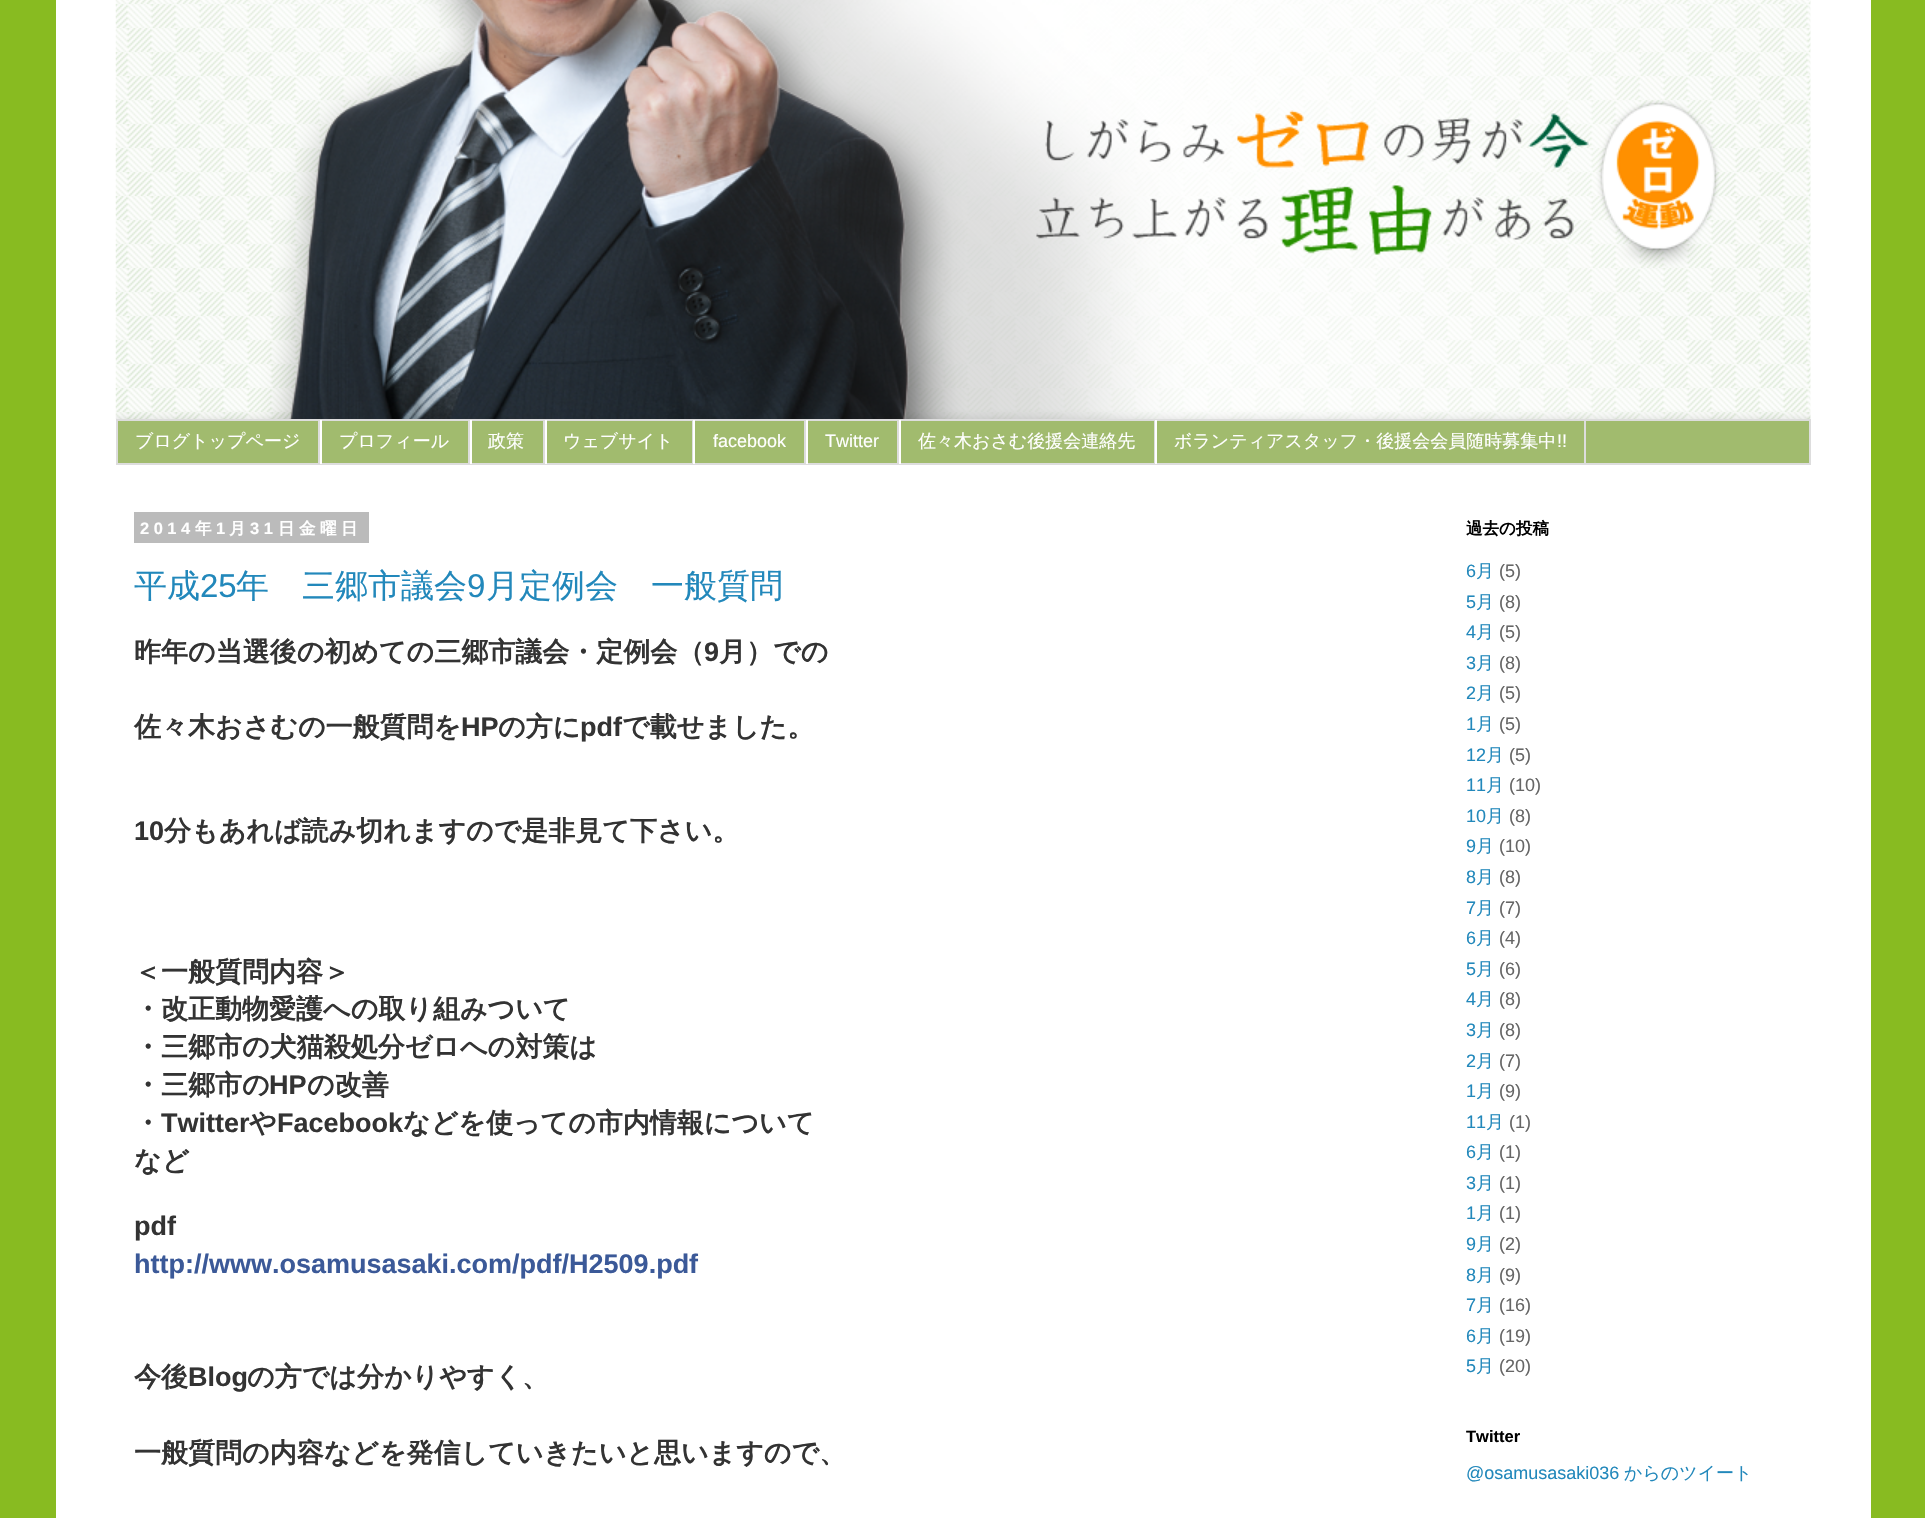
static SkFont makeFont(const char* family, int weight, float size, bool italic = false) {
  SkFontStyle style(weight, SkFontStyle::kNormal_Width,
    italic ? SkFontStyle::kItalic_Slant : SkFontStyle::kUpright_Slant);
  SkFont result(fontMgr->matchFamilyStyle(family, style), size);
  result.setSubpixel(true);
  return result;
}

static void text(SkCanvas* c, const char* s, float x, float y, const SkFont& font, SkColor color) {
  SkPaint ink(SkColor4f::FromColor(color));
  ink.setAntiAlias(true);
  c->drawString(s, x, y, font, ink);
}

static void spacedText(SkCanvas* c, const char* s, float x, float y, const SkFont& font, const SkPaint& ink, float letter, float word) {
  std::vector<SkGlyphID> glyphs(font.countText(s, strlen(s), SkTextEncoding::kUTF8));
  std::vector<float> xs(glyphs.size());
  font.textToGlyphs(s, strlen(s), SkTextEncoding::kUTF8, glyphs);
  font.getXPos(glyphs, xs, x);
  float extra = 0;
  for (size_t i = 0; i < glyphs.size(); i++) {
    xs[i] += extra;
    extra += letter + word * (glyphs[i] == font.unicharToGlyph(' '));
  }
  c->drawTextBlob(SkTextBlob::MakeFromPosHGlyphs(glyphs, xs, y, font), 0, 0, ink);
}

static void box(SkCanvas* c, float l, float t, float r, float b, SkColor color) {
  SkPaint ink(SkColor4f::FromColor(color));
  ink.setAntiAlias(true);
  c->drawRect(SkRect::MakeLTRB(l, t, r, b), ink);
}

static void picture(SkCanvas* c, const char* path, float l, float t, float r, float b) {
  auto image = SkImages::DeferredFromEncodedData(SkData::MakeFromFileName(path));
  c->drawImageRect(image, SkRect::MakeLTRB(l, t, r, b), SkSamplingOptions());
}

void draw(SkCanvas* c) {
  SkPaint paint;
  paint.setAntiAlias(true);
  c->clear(0xff88bb21);
  box(c, 56, 0, 1871, 1518, 0xffffffff);
  picture(c, "img_01.png", 115, 0, 1811, 420);
  paint.setColor(0xffa1bb6e);
  c->drawRect(SkRect::MakeLTRB(117, 420, 1810, 464), paint);
  paint.setStyle(SkPaint::kStroke_Style);
  paint.setStrokeWidth(2);
  paint.setColor(0xffdddddd);
  c->drawRect(SkRect::MakeLTRB(117, 420, 1810, 464), paint);
  box(c, 318, 420, 320, 464, 0xffdddddd);
  SkFont face1 = makeFont("WenQuanYi Zen Hei", 500, 18);
  text(c, "ブログトップページ", 135, 447, face1, 0xffffffff);
  box(c, 468, 420, 470, 464, 0xffdddddd);
  box(c, 320, 420, 322, 464, 0xffffffff);
  text(c, "プロフィール", 339, 447, face1, 0xffffffff);
  box(c, 543, 420, 545, 464, 0xffdddddd);
  box(c, 470, 420, 472, 464, 0xffffffff);
  text(c, "政策", 488, 447, face1, 0xffffffff);
  box(c, 692, 420, 693, 464, 0xffdddddd);
  box(c, 545, 420, 547, 464, 0xffffffff);
  text(c, "ウェブサイト", 563, 447, face1, 0xffffffff);
  box(c, 804, 420, 806, 464, 0xffdddddd);
  box(c, 693, 420, 695, 464, 0xffffffff);
  SkFont face2 = makeFont("Liberation Sans", 400, 18);
  text(c, "facebook", 713, 447, face2, 0xffffffff);
  box(c, 897, 420, 899, 464, 0xffdddddd);
  box(c, 806, 420, 808, 464, 0xffffffff);
  text(c, "Twitter", 825, 447, face2, 0xffffffff);
  box(c, 1154, 420, 1155, 464, 0xffdddddd);
  box(c, 899, 420, 901, 464, 0xffffffff);
  text(c, "佐々木おさむ後援会連絡先", 918, 447, face1, 0xffffffff);
  box(c, 1584, 420, 1586, 464, 0xffdddddd);
  box(c, 1155, 420, 1157, 464, 0xffffffff);
  text(c, "ボランティアスタッフ・後援会会員随時募集中", 1174, 447, face1, 0xffffffff);
  text(c, "!!", 1557, 447, face2, 0xffffffff);
  box(c, 134, 512, 369, 543, 0xffbbbbbb);
  SkFont face3 = makeFont("Liberation Sans", 700, 16.5f);
  paint.setStyle(SkPaint::kFill_Style);
  paint.setColor(0xffffffff);
  spacedText(c, "2014", 140, 534, face3, paint, 4.5f, 0);
  SkFont face4 = makeFont("WenQuanYi Zen Hei", 700, 16.5f);
  spacedText(c, "年", 195, 534, face4, paint, 4.5f, 0);
  spacedText(c, "1", 216, 534, face3, paint, 4.5f, 0);
  spacedText(c, "月", 229, 534, face4, paint, 4.5f, 0);
  spacedText(c, "31", 250, 534, face3, paint, 4.5f, 0);
  spacedText(c, "日金曜日", 278, 534, face4, paint, 4.5f, 0);
  SkFont face5 = makeFont("WenQuanYi Zen Hei", 500, 33);
  text(c, "平成", 134, 597, face5, 0xff2288bb);
  SkFont face6 = makeFont("Liberation Sans", 400, 33);
  text(c, "25", 200, 597, face6, 0xff2288bb);
  text(c, "年　三郷市議会", 236, 597, face5, 0xff2288bb);
  text(c, "9", 467, 597, face6, 0xff2288bb);
  text(c, "月定例会　一般質問", 486, 597, face5, 0xff2288bb);
  SkFont face7 = makeFont("WenQuanYi Zen Hei", 700, 27);
  text(c, "昨年の当選後の初めての三郷市議会・定例会（", 134, 661, face7, 0xff333333);
  SkFont face8 = makeFont("Liberation Sans", 700, 27);
  text(c, "9", 704, 661, face8, 0xff333333);
  text(c, "月）での", 719, 661, face7, 0xff333333);
  text(c, "佐々木おさむの一般質問を", 134, 736, face7, 0xff333333);
  text(c, "HP", 461, 736, face8, 0xff333333);
  text(c, "の方に", 498, 736, face7, 0xff333333);
  text(c, "pdf", 580, 736, face8, 0xff333333);
  text(c, "で載せました。", 622, 736, face7, 0xff333333);
  text(c, "10", 134, 840, face8, 0xff333333);
  text(c, "分もあれば読み切れますので是非見て下さい。", 164, 840, face7, 0xff333333);
  text(c, "＜一般質問内容＞", 134, 981, face7, 0xff333333);
  text(c, "・改正動物愛護への取り組みついて", 134, 1018, face7, 0xff333333);
  text(c, "・三郷市の犬猫殺処分ゼロへの対策は", 134, 1056, face7, 0xff333333);
  text(c, "・三郷市の", 134, 1094, face7, 0xff333333);
  text(c, "HP", 269, 1094, face8, 0xff333333);
  text(c, "の改善", 307, 1094, face7, 0xff333333);
  text(c, "・", 134, 1132, face7, 0xff333333);
  text(c, "Twitter", 161, 1132, face8, 0xff333333);
  text(c, "や", 249, 1132, face7, 0xff333333);
  text(c, "Facebook", 277, 1132, face8, 0xff333333);
  text(c, "などを使っての市内情報について", 403, 1132, face7, 0xff333333);
  text(c, "など", 134, 1170, face7, 0xff333333);
  text(c, "pdf", 134, 1235, face8, 0xff333333);
  text(c, "http://www.osamusasaki.com/pdf/H2509.pdf", 134, 1273, face8, 0xff3b5998);
  text(c, "今後", 134, 1386, face7, 0xff333333);
  text(c, "Blog", 188, 1386, face8, 0xff333333);
  text(c, "の方では分かりやすく、", 247, 1386, face7, 0xff333333);
  text(c, "一般質問の内容などを発信していきたいと思いますので、", 134, 1462, face7, 0xff333333);
  text(c, "過去の投稿", 1466, 534, face4, 0xff000000);
  text(c, "6", 1466, 577, face2, 0xff2288bb);
  text(c, "月", 1476, 577, face1, 0xff2288bb);
  text(c, "(5)", 1499, 577, face2, 0xff666666);
  text(c, "5", 1466, 608, face2, 0xff2288bb);
  text(c, "月", 1476, 608, face1, 0xff2288bb);
  text(c, "(8)", 1499, 608, face2, 0xff666666);
  text(c, "4", 1466, 638, face2, 0xff2288bb);
  text(c, "月", 1476, 638, face1, 0xff2288bb);
  text(c, "(5)", 1499, 638, face2, 0xff666666);
  text(c, "3", 1466, 669, face2, 0xff2288bb);
  text(c, "月", 1476, 669, face1, 0xff2288bb);
  text(c, "(8)", 1499, 669, face2, 0xff666666);
  text(c, "2", 1466, 699, face2, 0xff2288bb);
  text(c, "月", 1476, 699, face1, 0xff2288bb);
  text(c, "(5)", 1499, 699, face2, 0xff666666);
  text(c, "1", 1466, 730, face2, 0xff2288bb);
  text(c, "月", 1476, 730, face1, 0xff2288bb);
  text(c, "(5)", 1499, 730, face2, 0xff666666);
  text(c, "12", 1466, 761, face2, 0xff2288bb);
  text(c, "月", 1486, 761, face1, 0xff2288bb);
  text(c, "(5)", 1509, 761, face2, 0xff666666);
  text(c, "11", 1466, 791, face2, 0xff2288bb);
  text(c, "月", 1486, 791, face1, 0xff2288bb);
  text(c, "(10)", 1509, 791, face2, 0xff666666);
  text(c, "10", 1466, 822, face2, 0xff2288bb);
  text(c, "月", 1486, 822, face1, 0xff2288bb);
  text(c, "(8)", 1509, 822, face2, 0xff666666);
  text(c, "9", 1466, 852, face2, 0xff2288bb);
  text(c, "月", 1476, 852, face1, 0xff2288bb);
  text(c, "(10)", 1499, 852, face2, 0xff666666);
  text(c, "8", 1466, 883, face2, 0xff2288bb);
  text(c, "月", 1476, 883, face1, 0xff2288bb);
  text(c, "(8)", 1499, 883, face2, 0xff666666);
  text(c, "7", 1466, 914, face2, 0xff2288bb);
  text(c, "月", 1476, 914, face1, 0xff2288bb);
  text(c, "(7)", 1499, 914, face2, 0xff666666);
  text(c, "6", 1466, 944, face2, 0xff2288bb);
  text(c, "月", 1476, 944, face1, 0xff2288bb);
  text(c, "(4)", 1499, 944, face2, 0xff666666);
  text(c, "5", 1466, 975, face2, 0xff2288bb);
  text(c, "月", 1476, 975, face1, 0xff2288bb);
  text(c, "(6)", 1499, 975, face2, 0xff666666);
  text(c, "4", 1466, 1005, face2, 0xff2288bb);
  text(c, "月", 1476, 1005, face1, 0xff2288bb);
  text(c, "(8)", 1499, 1005, face2, 0xff666666);
  text(c, "3", 1466, 1036, face2, 0xff2288bb);
  text(c, "月", 1476, 1036, face1, 0xff2288bb);
  text(c, "(8)", 1499, 1036, face2, 0xff666666);
  text(c, "2", 1466, 1067, face2, 0xff2288bb);
  text(c, "月", 1476, 1067, face1, 0xff2288bb);
  text(c, "(7)", 1499, 1067, face2, 0xff666666);
  text(c, "1", 1466, 1097, face2, 0xff2288bb);
  text(c, "月", 1476, 1097, face1, 0xff2288bb);
  text(c, "(9)", 1499, 1097, face2, 0xff666666);
  text(c, "11", 1466, 1128, face2, 0xff2288bb);
  text(c, "月", 1486, 1128, face1, 0xff2288bb);
  text(c, "(1)", 1509, 1128, face2, 0xff666666);
  text(c, "6", 1466, 1158, face2, 0xff2288bb);
  text(c, "月", 1476, 1158, face1, 0xff2288bb);
  text(c, "(1)", 1499, 1158, face2, 0xff666666);
  text(c, "3", 1466, 1189, face2, 0xff2288bb);
  text(c, "月", 1476, 1189, face1, 0xff2288bb);
  text(c, "(1)", 1499, 1189, face2, 0xff666666);
  text(c, "1", 1466, 1219, face2, 0xff2288bb);
  text(c, "月", 1476, 1219, face1, 0xff2288bb);
  text(c, "(1)", 1499, 1219, face2, 0xff666666);
  text(c, "9", 1466, 1250, face2, 0xff2288bb);
  text(c, "月", 1476, 1250, face1, 0xff2288bb);
  text(c, "(2)", 1499, 1250, face2, 0xff666666);
  text(c, "8", 1466, 1281, face2, 0xff2288bb);
  text(c, "月", 1476, 1281, face1, 0xff2288bb);
  text(c, "(9)", 1499, 1281, face2, 0xff666666);
  text(c, "7", 1466, 1311, face2, 0xff2288bb);
  text(c, "月", 1476, 1311, face1, 0xff2288bb);
  text(c, "(16)", 1499, 1311, face2, 0xff666666);
  text(c, "6", 1466, 1342, face2, 0xff2288bb);
  text(c, "月", 1476, 1342, face1, 0xff2288bb);
  text(c, "(19)", 1499, 1342, face2, 0xff666666);
  text(c, "5", 1466, 1372, face2, 0xff2288bb);
  text(c, "月", 1476, 1372, face1, 0xff2288bb);
  text(c, "(20)", 1499, 1372, face2, 0xff666666);
  text(c, "Twitter", 1466, 1442, face3, 0xff000000);
  text(c, "@osamusasaki036", 1466, 1479, face2, 0xff2288bb);
  text(c, "からのツイート", 1624, 1479, face1, 0xff2288bb);
}
